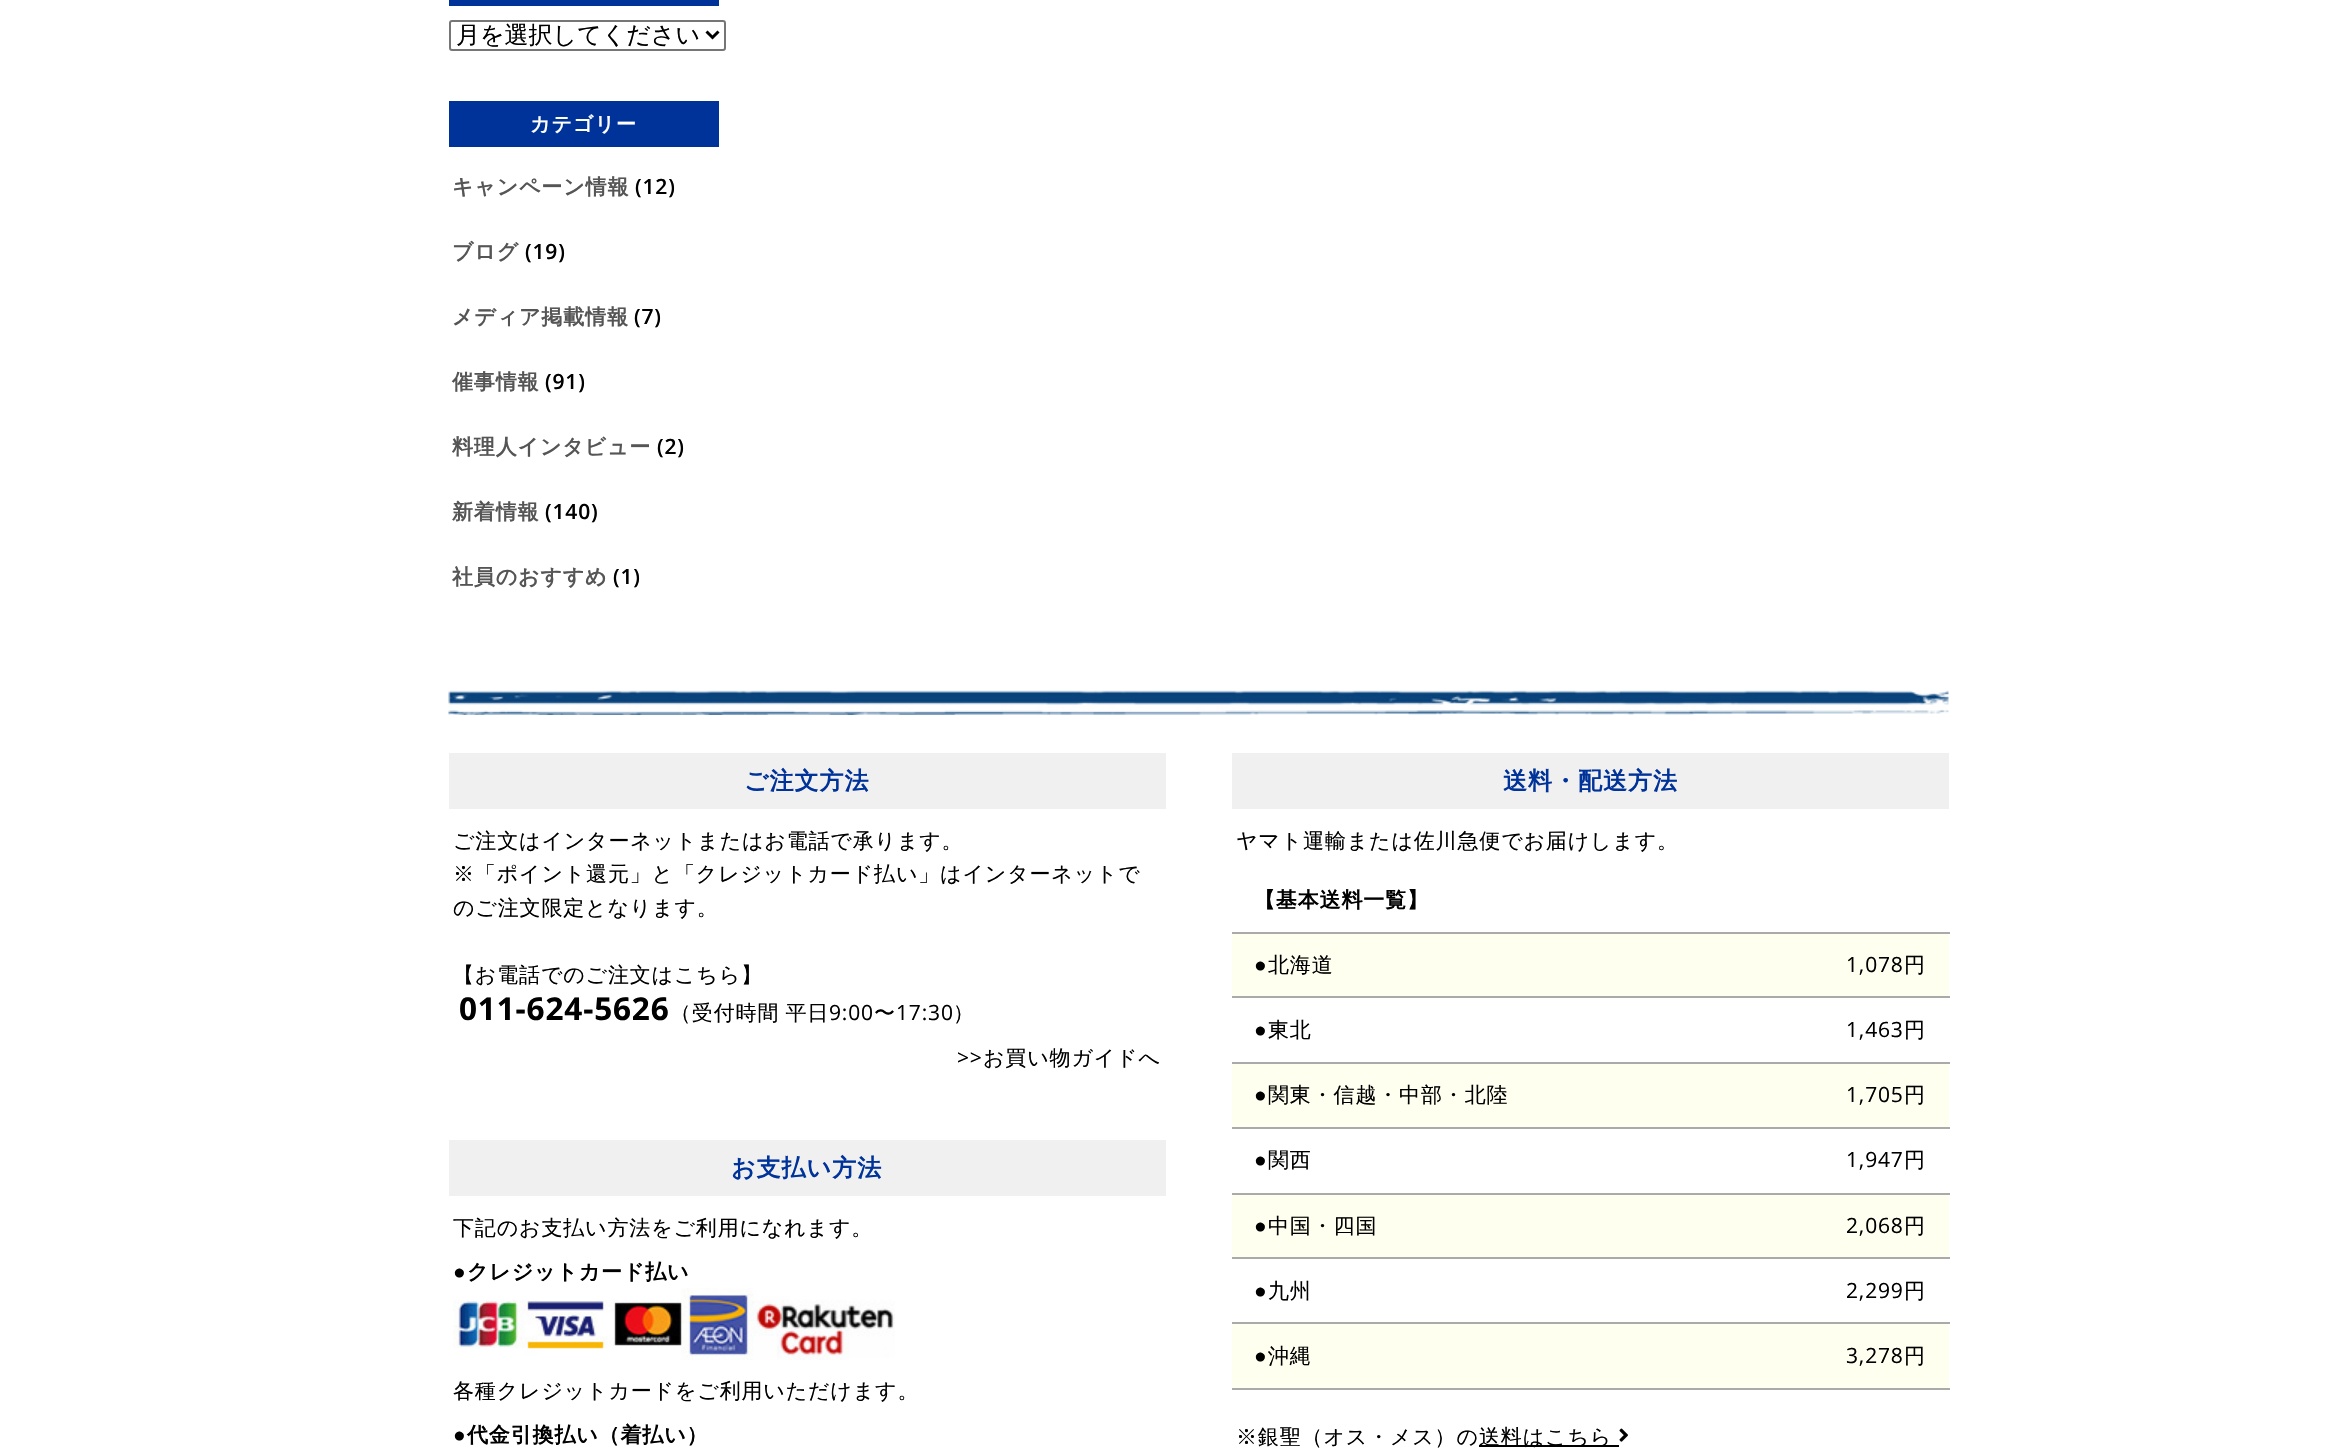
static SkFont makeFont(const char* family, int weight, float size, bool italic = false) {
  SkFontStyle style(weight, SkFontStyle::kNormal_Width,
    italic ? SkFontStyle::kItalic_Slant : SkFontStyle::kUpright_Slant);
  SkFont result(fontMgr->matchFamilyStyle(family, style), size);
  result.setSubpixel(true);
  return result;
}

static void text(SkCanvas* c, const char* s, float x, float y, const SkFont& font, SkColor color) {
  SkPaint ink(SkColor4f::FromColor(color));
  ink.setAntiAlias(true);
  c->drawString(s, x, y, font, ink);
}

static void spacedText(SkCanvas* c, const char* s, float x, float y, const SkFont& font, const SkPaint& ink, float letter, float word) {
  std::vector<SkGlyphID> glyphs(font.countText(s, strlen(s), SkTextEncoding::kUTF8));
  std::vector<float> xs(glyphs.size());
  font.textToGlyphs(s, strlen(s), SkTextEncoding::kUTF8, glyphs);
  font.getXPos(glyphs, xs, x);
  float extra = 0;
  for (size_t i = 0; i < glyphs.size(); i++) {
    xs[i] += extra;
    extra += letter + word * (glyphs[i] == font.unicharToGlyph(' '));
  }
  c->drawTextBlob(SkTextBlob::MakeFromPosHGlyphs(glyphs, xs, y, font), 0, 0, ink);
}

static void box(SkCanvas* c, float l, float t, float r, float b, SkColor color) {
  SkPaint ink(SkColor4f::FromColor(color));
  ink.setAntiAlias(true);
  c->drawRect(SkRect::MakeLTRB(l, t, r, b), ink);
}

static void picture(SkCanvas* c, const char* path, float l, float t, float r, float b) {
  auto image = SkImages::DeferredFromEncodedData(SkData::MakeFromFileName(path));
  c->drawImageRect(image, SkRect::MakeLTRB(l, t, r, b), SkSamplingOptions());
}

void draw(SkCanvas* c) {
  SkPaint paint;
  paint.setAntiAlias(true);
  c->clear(0xffffffff);
  box(c, 449, 0, 719, 6, 0xff003399);
  paint.setStyle(SkPaint::kStroke_Style);
  paint.setStrokeWidth(2);
  paint.setColor(0xff767676);
  c->drawRoundRect(SkRect::MakeLTRB(450, 21, 725, 50), 2, 2, paint);
  paint.setStrokeWidth(3);
  paint.setColor(0xff000000);
  c->drawPath(SkPathBuilder().moveTo(706.5f, 31.5f).lineTo(712.5f, 37.5f).lineTo(718.5f, 31.5f).detach(), paint);
  SkFont face1 = makeFont("WenQuanYi Zen Hei", 500, 24);
  text(c, "月を選択してください", 456, 43, face1, 0xff000000);
  box(c, 449, 101, 719, 147, 0xff003399);
  SkFont face2 = makeFont("WenQuanYi Zen Hei", 700, 20);
  paint.setStyle(SkPaint::kFill_Style);
  paint.setColor(0xffffffff);
  spacedText(c, "カテゴリー", 530, 131, face2, paint, 1, 0);
  SkFont face3 = makeFont("WenQuanYi Zen Hei", 700, 21);
  paint.setColor(0xff555555);
  spacedText(c, "キャンペーン情報", 452, 194, face3, paint, 0.85f, 0);
  SkFont face4 = makeFont("Open Sans", 600, 21);
  paint.setColor(0xff000000);
  spacedText(c, "(12)", 635, 194, face4, paint, 0.85f, 0);
  paint.setColor(0xff555555);
  spacedText(c, "ブログ", 452, 259, face3, paint, 0.85f, 0);
  paint.setColor(0xff000000);
  spacedText(c, "(19)", 525, 259, face4, paint, 0.85f, 0);
  paint.setColor(0xff555555);
  spacedText(c, "メディア掲載情報", 452, 324, face3, paint, 0.85f, 0);
  paint.setColor(0xff000000);
  spacedText(c, "(7)", 634, 324, face4, paint, 0.85f, 0);
  paint.setColor(0xff555555);
  spacedText(c, "催事情報", 452, 389, face3, paint, 0.85f, 0);
  paint.setColor(0xff000000);
  spacedText(c, "(91)", 545, 389, face4, paint, 0.85f, 0);
  paint.setColor(0xff555555);
  spacedText(c, "料理人インタビュー", 452, 454, face3, paint, 0.85f, 0);
  paint.setColor(0xff000000);
  spacedText(c, "(2)", 657, 454, face4, paint, 0.85f, 0);
  paint.setColor(0xff555555);
  spacedText(c, "新着情報", 452, 519, face3, paint, 0.85f, 0);
  paint.setColor(0xff000000);
  spacedText(c, "(140)", 545, 519, face4, paint, 0.85f, 0);
  paint.setColor(0xff555555);
  spacedText(c, "社員のおすすめ", 452, 584, face3, paint, 0.85f, 0);
  paint.setColor(0xff000000);
  spacedText(c, "(1)", 613, 584, face4, paint, 0.85f, 0);
  picture(c, "img_01.png", 448, 690, 1949, 715);
  box(c, 449, 753, 1166, 809, 0xfff0f0f0);
  SkFont face5 = makeFont("WenQuanYi Zen Hei", 700, 24);
  paint.setColor(0xff003399);
  spacedText(c, "ご注文方法", 744, 789, face5, paint, 1, 0);
  SkFont face6 = makeFont("WenQuanYi Zen Hei", 500, 21);
  paint.setColor(0xff000000);
  spacedText(c, "ご注文はインターネットまたはお電話で承ります。", 453, 848, face6, paint, 0.85f, 0);
  spacedText(c, "※「ポイント還元」と「クレジットカード払い」はインターネットで", 453, 881, face6, paint, 0.85f, 0);
  spacedText(c, "のご注文限定となります。", 453, 915, face6, paint, 0.85f, 0);
  spacedText(c, "【お電話でのご注文はこちら】", 453, 982, face6, paint, 0.85f, 0);
  SkFont face7 = makeFont("Open Sans", 700, 31.5f);
  spacedText(c, "011-624-5626", 459, 1020, face7, paint, 0.85f, 0);
  spacedText(c, "（受付時間 平日", 670, 1020, face6, paint, 0.85f, -1);
  SkFont face8 = makeFont("Open Sans", 400, 21);
  spacedText(c, "9:00", 829, 1020, face8, paint, 0.85f, 0);
  spacedText(c, "〜", 874, 1020, face6, paint, 0.85f, 0);
  spacedText(c, "17:30", 896, 1020, face8, paint, 0.85f, 0);
  spacedText(c, "）", 953, 1020, face6, paint, 0.85f, 0);
  spacedText(c, ">>", 957, 1065, face8, paint, 0.85f, 0);
  spacedText(c, "お買い物ガイドへ", 983, 1065, face6, paint, 0.85f, 0);
  box(c, 449, 1140, 1166, 1196, 0xfff0f0f0);
  paint.setColor(0xff003399);
  spacedText(c, "お支払い方法", 731, 1176, face5, paint, 1, 0);
  paint.setColor(0xff000000);
  spacedText(c, "下記のお支払い方法をご利用になれます。", 453, 1235, face6, paint, 0.85f, 0);
  SkFont face9 = makeFont("Liberation Sans", 700, 21);
  spacedText(c, "●", 453, 1279, face9, paint, 0.85f, 0);
  spacedText(c, "クレジットカード払い", 467, 1279, face3, paint, 0.85f, 0);
  picture(c, "img_02.png", 453, 1288, 895, 1360);
  spacedText(c, "各種クレジットカードをご利用いただけます。", 453, 1398, face6, paint, 0.85f, 0);
  spacedText(c, "●", 453, 1442, face9, paint, 0.85f, 0);
  spacedText(c, "代金引換払い（着払い）", 467, 1442, face3, paint, 0.85f, 0);
  box(c, 1232, 753, 1949, 809, 0xfff0f0f0);
  paint.setColor(0xff003399);
  spacedText(c, "送料・配送方法", 1503, 789, face5, paint, 1, 0);
  paint.setColor(0xff000000);
  spacedText(c, "ヤマト運輸または佐川急便でお届けします。", 1236, 848, face6, paint, 0.85f, 0);
  spacedText(c, "【基本送料一覧】", 1254, 907, face3, paint, 0.85f, 0);
  box(c, 1232, 932, 1950, 934, 0xffaaaaaa);
  box(c, 1232, 934, 1949, 996, 0xfffffff0);
  SkFont face10 = makeFont("Liberation Sans", 400, 21);
  spacedText(c, "●", 1254, 972, face10, paint, 0.85f, 0);
  spacedText(c, "北海道", 1268, 972, face6, paint, 0.85f, 0);
  box(c, 1232, 996, 1950, 998, 0xffaaaaaa);
  spacedText(c, "1,078", 1846, 972, face8, paint, 0.85f, 0);
  spacedText(c, "円", 1904, 972, face6, paint, 0.85f, 0);
  spacedText(c, "●", 1254, 1037, face10, paint, 0.85f, 0);
  spacedText(c, "東北", 1268, 1037, face6, paint, 0.85f, 0);
  box(c, 1232, 1062, 1950, 1064, 0xffaaaaaa);
  spacedText(c, "1,463", 1846, 1037, face8, paint, 0.85f, 0);
  spacedText(c, "円", 1904, 1037, face6, paint, 0.85f, 0);
  box(c, 1232, 1064, 1949, 1127, 0xfffffff0);
  spacedText(c, "●", 1254, 1102, face10, paint, 0.85f, 0);
  spacedText(c, "関東・信越・中部・北陸", 1268, 1102, face6, paint, 0.85f, 0);
  box(c, 1232, 1127, 1950, 1129, 0xffaaaaaa);
  spacedText(c, "1,705", 1846, 1102, face8, paint, 0.85f, 0);
  spacedText(c, "円", 1904, 1102, face6, paint, 0.85f, 0);
  spacedText(c, "●", 1254, 1167, face10, paint, 0.85f, 0);
  spacedText(c, "関西", 1268, 1167, face6, paint, 0.85f, 0);
  box(c, 1232, 1193, 1950, 1195, 0xffaaaaaa);
  spacedText(c, "1,947", 1846, 1167, face8, paint, 0.85f, 0);
  spacedText(c, "円", 1904, 1167, face6, paint, 0.85f, 0);
  box(c, 1232, 1195, 1949, 1257, 0xfffffff0);
  spacedText(c, "●", 1254, 1233, face10, paint, 0.85f, 0);
  spacedText(c, "中国・四国", 1268, 1233, face6, paint, 0.85f, 0);
  box(c, 1232, 1257, 1950, 1259, 0xffaaaaaa);
  spacedText(c, "2,068", 1846, 1233, face8, paint, 0.85f, 0);
  spacedText(c, "円", 1904, 1233, face6, paint, 0.85f, 0);
  spacedText(c, "●", 1254, 1298, face10, paint, 0.85f, 0);
  spacedText(c, "九州", 1268, 1298, face6, paint, 0.85f, 0);
  box(c, 1232, 1322, 1950, 1324, 0xffaaaaaa);
  spacedText(c, "2,299", 1846, 1298, face8, paint, 0.85f, 0);
  spacedText(c, "円", 1904, 1298, face6, paint, 0.85f, 0);
  box(c, 1232, 1324, 1949, 1388, 0xfffffff0);
  spacedText(c, "●", 1254, 1363, face10, paint, 0.85f, 0);
  spacedText(c, "沖縄", 1268, 1363, face6, paint, 0.85f, 0);
  box(c, 1232, 1388, 1950, 1390, 0xffaaaaaa);
  spacedText(c, "3,278", 1846, 1363, face8, paint, 0.85f, 0);
  spacedText(c, "円", 1904, 1363, face6, paint, 0.85f, 0);
  spacedText(c, "※銀聖（オス・メス）の", 1236, 1444, face6, paint, 0.85f, 0);
  box(c, 1479, 1445, 1619, 1447, 0xff000000);
  spacedText(c, "送料はこちら", 1479, 1444, face6, paint, 0.85f, 0);
  picture(c, "img_03.png", 1619, 1428, 1628, 1442);
}
